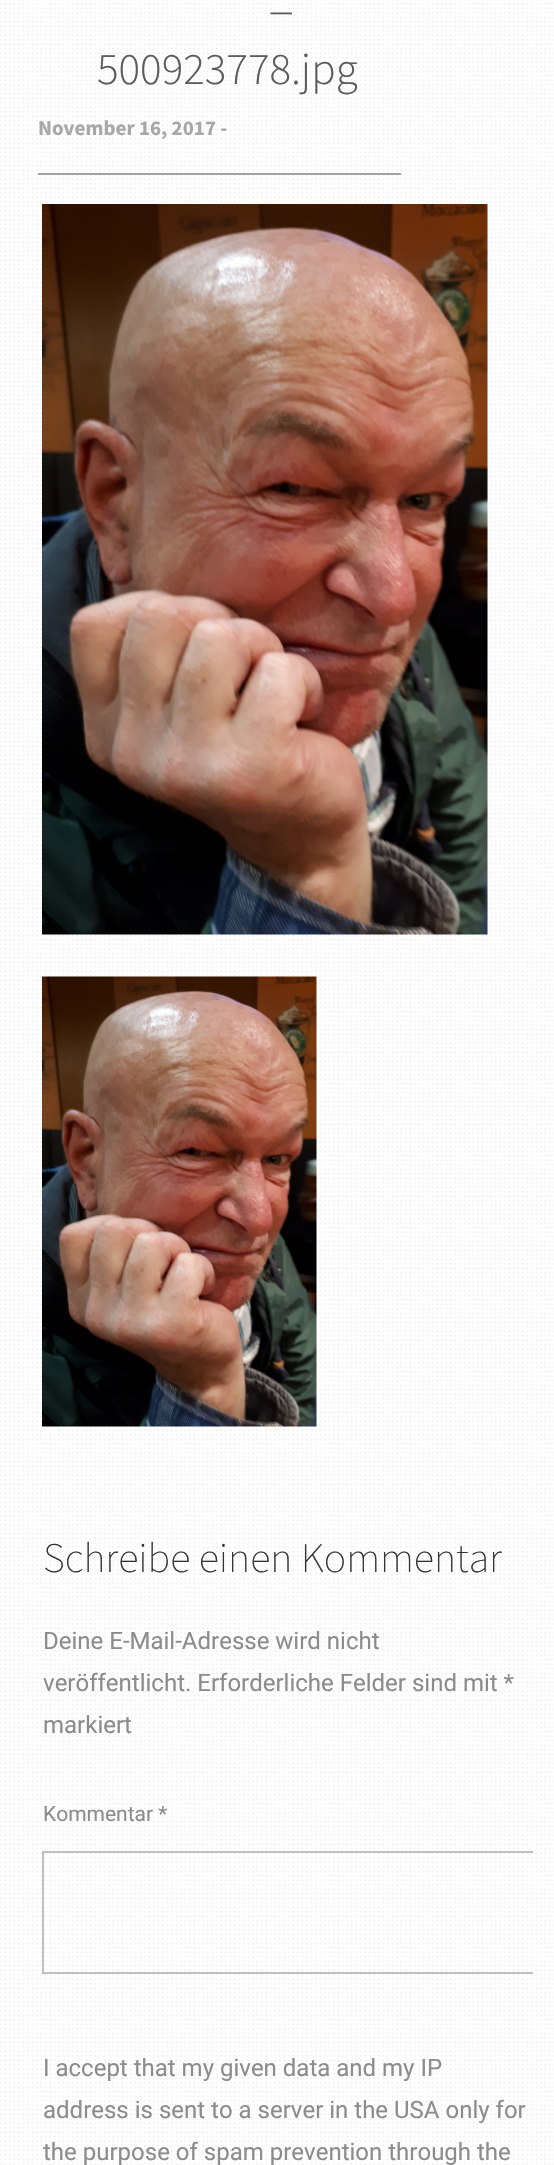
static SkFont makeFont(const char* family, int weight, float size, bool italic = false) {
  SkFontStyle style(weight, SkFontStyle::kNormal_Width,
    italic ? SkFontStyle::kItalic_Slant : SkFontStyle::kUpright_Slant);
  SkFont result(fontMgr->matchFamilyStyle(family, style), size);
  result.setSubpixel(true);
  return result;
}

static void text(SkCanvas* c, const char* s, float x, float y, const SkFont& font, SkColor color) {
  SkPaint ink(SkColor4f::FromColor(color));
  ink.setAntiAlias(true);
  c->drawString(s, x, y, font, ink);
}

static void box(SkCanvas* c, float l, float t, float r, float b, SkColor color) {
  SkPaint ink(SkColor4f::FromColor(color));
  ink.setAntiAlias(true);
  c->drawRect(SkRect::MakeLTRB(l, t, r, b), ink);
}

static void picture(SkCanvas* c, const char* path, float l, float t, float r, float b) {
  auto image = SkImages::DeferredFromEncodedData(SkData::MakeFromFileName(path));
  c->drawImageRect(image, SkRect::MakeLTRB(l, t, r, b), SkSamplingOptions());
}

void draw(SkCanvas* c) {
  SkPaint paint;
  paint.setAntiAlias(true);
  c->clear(0xffffffff);
  picture(c, "img_01.png", 0, 0, 554, 2165);
  picture(c, "img_02.png", 27, 3, 73, 22);
  SkFont face1 = makeFont("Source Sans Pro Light", 300, 45);
  text(c, "_", 270, 9, face1, 0xff5c5c5c);
  text(c, "500923778.jpg", 97, 84, face1, 0xff5c5c5c);
  box(c, 38, 173, 401, 175, 0xffa1a1a1);
  SkFont face2 = makeFont("Source Sans Pro", 700, 21);
  text(c, "November 16, 2017 -", 38, 135, face2, 0xffa8a8a8);
  picture(c, "img_03.png", 42, 204, 488, 935);
  picture(c, "img_04.png", 42, 976, 317, 1427);
  SkFont face3 = makeFont("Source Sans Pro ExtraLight", 200, 42);
  text(c, "Schreibe einen Kommentar", 43, 1572, face3, 0xff323232);
  SkFont face4 = makeFont("Roboto", 400, 24);
  text(c, "Deine E-Mail-Adresse wird nicht", 43, 1649, face4, 0xff8c8c8d);
  text(c, "veröffentlicht. Erforderliche Felder sind mit *", 43, 1691, face4, 0xff8c8c8d);
  text(c, "markiert", 43, 1733, face4, 0xff8c8c8d);
  SkFont face5 = makeFont("Roboto", 400, 21);
  text(c, "Kommentar *", 43, 1821, face5, 0xff8c8c8d);
  c->save();
  c->clipRect(SkRect::MakeLTRB(42, 1530, 533, 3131));
  paint.setStyle(SkPaint::kStroke_Style);
  paint.setStrokeWidth(2);
  paint.setColor(0xffbfbfbf);
  c->drawRect(SkRect::MakeLTRB(43, 1852, 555, 1973), paint);
  c->restore();
  text(c, "I accept that my given data and my IP", 43, 2076, face4, 0xff8c8c8d);
  text(c, "address is sent to a server in the USA only for", 43, 2118, face4, 0xff8c8c8d);
  text(c, "the purpose of spam prevention through the", 43, 2160, face4, 0xff8c8c8d);
}
